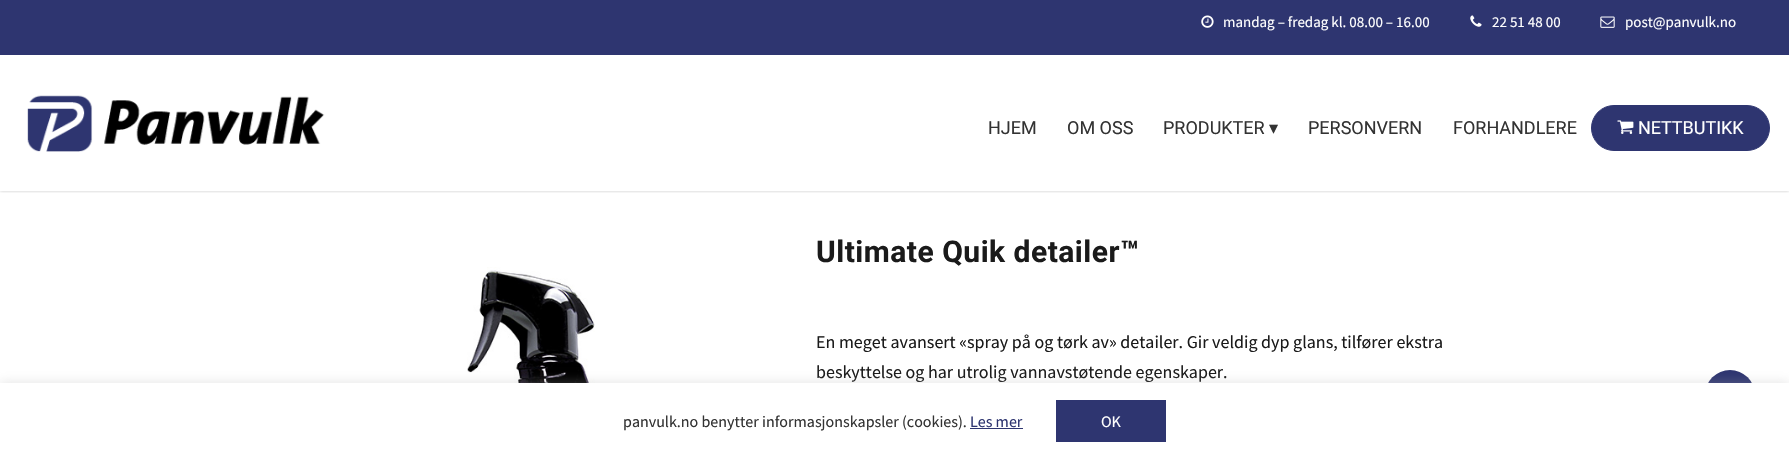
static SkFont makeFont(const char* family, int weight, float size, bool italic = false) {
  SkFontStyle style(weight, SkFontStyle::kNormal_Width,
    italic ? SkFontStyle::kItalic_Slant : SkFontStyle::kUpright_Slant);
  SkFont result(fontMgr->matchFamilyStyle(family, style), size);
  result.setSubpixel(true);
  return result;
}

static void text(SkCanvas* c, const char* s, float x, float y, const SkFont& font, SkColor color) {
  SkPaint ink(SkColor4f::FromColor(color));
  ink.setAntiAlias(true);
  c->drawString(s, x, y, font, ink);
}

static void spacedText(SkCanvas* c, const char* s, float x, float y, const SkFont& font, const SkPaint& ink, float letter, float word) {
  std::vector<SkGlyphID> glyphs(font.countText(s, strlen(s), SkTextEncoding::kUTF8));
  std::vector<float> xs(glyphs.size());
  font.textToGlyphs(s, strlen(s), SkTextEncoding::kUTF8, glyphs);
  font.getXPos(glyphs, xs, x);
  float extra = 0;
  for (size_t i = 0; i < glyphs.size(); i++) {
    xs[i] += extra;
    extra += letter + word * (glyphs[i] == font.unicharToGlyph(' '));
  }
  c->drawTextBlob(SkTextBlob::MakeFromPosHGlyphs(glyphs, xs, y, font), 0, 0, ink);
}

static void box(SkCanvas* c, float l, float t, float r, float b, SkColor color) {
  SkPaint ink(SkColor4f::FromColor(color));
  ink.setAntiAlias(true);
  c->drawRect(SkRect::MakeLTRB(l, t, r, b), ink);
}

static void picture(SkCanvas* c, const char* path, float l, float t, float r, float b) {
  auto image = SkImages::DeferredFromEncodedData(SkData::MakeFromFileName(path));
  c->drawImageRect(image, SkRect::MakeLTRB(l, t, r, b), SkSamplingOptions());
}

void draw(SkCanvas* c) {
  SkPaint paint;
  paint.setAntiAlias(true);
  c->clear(0xffffffff);
  c->save();
  c->clipRect(SkRect::MakeLTRB(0, 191, 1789, 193));
  paint.setColor(0x38000000);
  paint.setMaskFilter(SkMaskFilter::MakeBlur(kNormal_SkBlurStyle, 1.5f));
  c->drawRect(SkRect::MakeLTRB(0, 0, 1789, 191), paint);
  paint.setMaskFilter(nullptr);
  c->restore();
  box(c, 0, 0, 1789, 55, 0xff2e3570);
  picture(c, "img_01.png", 1201, 15, 1214, 28);
  SkFont face1 = makeFont("Source Sans Pro", 400, 15);
  text(c, "mandag – fredag kl. 08.00 – 16.00", 1223, 27, face1, 0xffffffff);
  picture(c, "img_02.png", 1470, 15, 1482, 27);
  text(c, "22 51 48 00", 1492, 27, face1, 0xffffffff);
  picture(c, "img_03.png", 1600, 16, 1615, 28);
  text(c, "post@panvulk.no", 1625, 27, face1, 0xffffffff);
  picture(c, "img_04.png", 27, 95, 325, 152);
  SkFont face2 = makeFont("Roboto", 400, 18);
  text(c, "HJEM", 988, 134, face2, 0xff333333);
  text(c, "OM OSS", 1067, 134, face2, 0xff333333);
  text(c, "PRODUKTER", 1163, 134, face2, 0xff333333);
  SkFont face3 = makeFont("DejaVu Sans", 400, 18);
  text(c, "▾", 1269, 134, face3, 0xff333333);
  text(c, "PERSONVERN", 1308, 134, face2, 0xff333333);
  text(c, "FORHANDLERE", 1453, 134, face2, 0xff333333);
  paint.setColor(0xff2e3570);
  c->drawRoundRect(SkRect::MakeLTRB(1591.5f, 105.5f, 1769.5f, 150.5f), 22.5f, 22.5f, paint);
  paint.setStyle(SkPaint::kStroke_Style);
  paint.setStrokeWidth(1);
  c->drawRoundRect(SkRect::MakeLTRB(1591.5f, 105.5f, 1769.5f, 150.5f), 22.5f, 22.5f, paint);
  picture(c, "img_05.png", 1617, 120, 1634, 134);
  text(c, "NETTBUTIKK", 1638, 134, face2, 0xffffffff);
  picture(c, "img_06.png", 467, 267, 595, 383);
  SkFont face4 = makeFont("Roboto", 700, 30);
  paint.setStyle(SkPaint::kFill_Style);
  paint.setColor(0xff1a1a1a);
  spacedText(c, "Ultimate Quik detailer™", 816, 262, face4, paint, 0.5f, 0);
  SkFont face5 = makeFont("Source Sans Pro", 400, 18);
  text(c, "En meget avansert «spray på og tørk av» detailer. Gir veldig dyp glans, tilfører ekstra", 816, 348, face5, 0xff1a1a1a);
  text(c, "beskyttelse og har utrolig vannavstøtende egenskaper.", 816, 378, face5, 0xff1a1a1a);
  paint.setColor(0xff2e3570);
  c->drawCircle(1730, 395, 25, paint);
  paint.setColor(0x4dacabab);
  paint.setMaskFilter(SkMaskFilter::MakeBlur(kNormal_SkBlurStyle, 5));
  c->drawRect(SkRect::MakeLTRB(0, 382, 1789, 453), paint);
  paint.setMaskFilter(nullptr);
  box(c, 0, 383, 1789, 454, 0xffffffff);
  SkFont face6 = makeFont("Source Sans Pro", 400, 16);
  text(c, "panvulk.no benytter informasjonskapsler (cookies).", 623, 427, face6, 0xff333333);
  text(c, "Les mer", 970, 427, face6, 0xff2e3570);
  box(c, 970, 428, 1023, 429, 0xff2e3570);
  box(c, 1056, 400, 1166, 442, 0xff2e3570);
  text(c, "OK", 1101, 427, face6, 0xffffffff);
}
